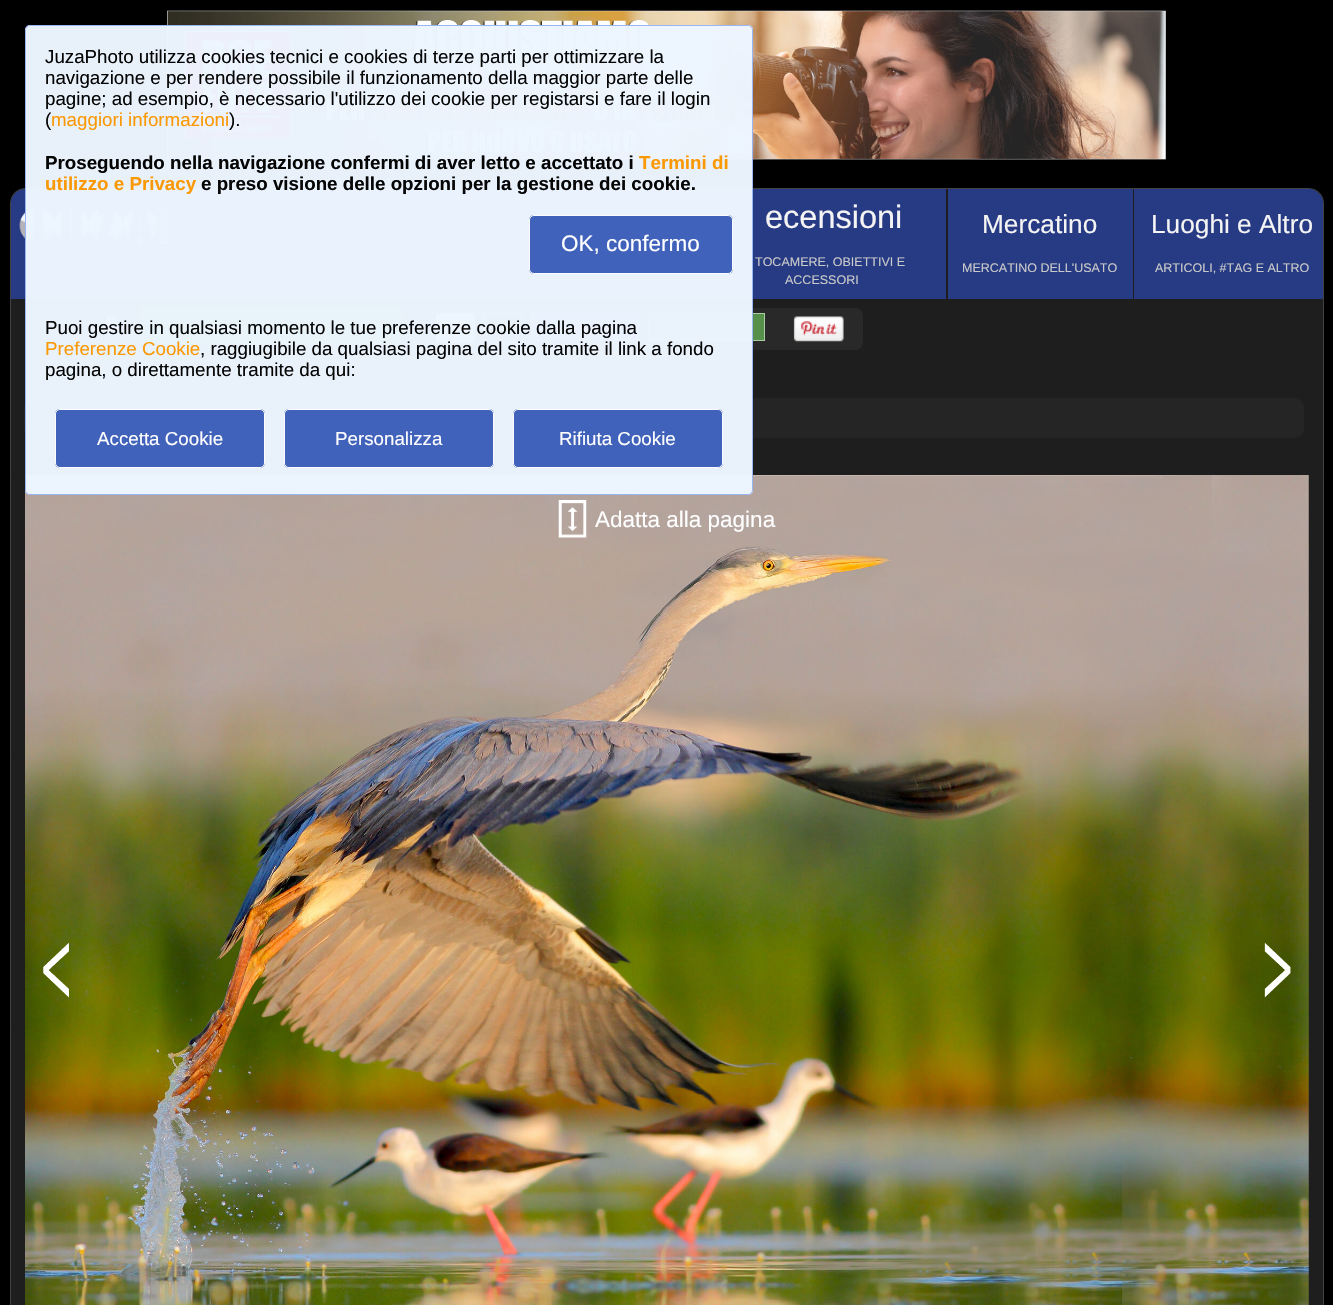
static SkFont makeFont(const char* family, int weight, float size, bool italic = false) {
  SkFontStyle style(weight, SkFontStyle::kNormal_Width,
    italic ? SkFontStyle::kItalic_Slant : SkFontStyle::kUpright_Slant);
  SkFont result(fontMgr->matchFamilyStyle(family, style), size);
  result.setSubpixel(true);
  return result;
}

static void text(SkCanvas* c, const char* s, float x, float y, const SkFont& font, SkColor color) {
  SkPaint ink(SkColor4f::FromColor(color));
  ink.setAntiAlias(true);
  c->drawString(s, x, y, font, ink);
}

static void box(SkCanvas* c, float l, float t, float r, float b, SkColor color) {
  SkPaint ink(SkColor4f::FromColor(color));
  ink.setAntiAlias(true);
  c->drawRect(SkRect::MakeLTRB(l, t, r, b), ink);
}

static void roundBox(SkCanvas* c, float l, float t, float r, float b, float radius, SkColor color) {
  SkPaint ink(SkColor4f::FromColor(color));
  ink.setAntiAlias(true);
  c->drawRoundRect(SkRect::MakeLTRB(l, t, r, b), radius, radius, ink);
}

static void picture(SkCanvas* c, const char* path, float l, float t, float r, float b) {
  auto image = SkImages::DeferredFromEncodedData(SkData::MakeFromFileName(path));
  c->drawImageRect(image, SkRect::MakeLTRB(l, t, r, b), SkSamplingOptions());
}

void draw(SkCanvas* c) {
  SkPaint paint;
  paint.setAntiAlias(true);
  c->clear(0xff000000);
  picture(c, "img_01.png", 167, 10, 1166, 160);
  paint.setColor(0xff1e1e1e);
  c->drawRoundRect(SkRect::MakeLTRB(10.5f, 188.5f, 1323.5f, 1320.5f), 14.5f, 14.5f, paint);
  paint.setStyle(SkPaint::kStroke_Style);
  paint.setStrokeWidth(1);
  paint.setColor(0xff424242);
  c->drawRoundRect(SkRect::MakeLTRB(10.5f, 188.5f, 1323.5f, 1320.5f), 14.5f, 14.5f, paint);
  c->save();
  c->clipPath(SkPathBuilder().moveTo(25, 189).lineTo(1309, 189).cubicTo(1316.5f, 189, 1323, 195.5f, 1323, 203).lineTo(1323, 2981).cubicTo(1323, 2988.5f, 1316.5f, 2995, 1309, 2995).lineTo(25, 2995).cubicTo(17.5f, 2995, 11, 2988.5f, 11, 2981).lineTo(11, 203).cubicTo(11, 195.5f, 17.5f, 189, 25, 189).close().detach(), true);
  paint.setStyle(SkPaint::kFill_Style);
  paint.setColor(0xf2273c89);
  c->drawPath(SkPathBuilder().moveTo(13, 188).lineTo(180, 188).lineTo(180, 299).lineTo(9, 299).lineTo(9, 192).cubicTo(9, 190, 11, 188, 13, 188).close().detach(), paint);
  c->restore();
  picture(c, "img_02.png", 19, 208, 169, 244);
  box(c, 181, 189, 444, 299, 0xff273b84);
  box(c, 445, 189, 695, 299, 0xff273b84);
  box(c, 696, 189, 946, 299, 0xff273b84);
  paint.setColor(0xff292929);
  c->drawPath(SkPathBuilder().moveTo(37, 306).lineTo(139, 306).lineTo(139, 344).lineTo(37, 344).cubicTo(32.5f, 344, 29, 340.5f, 29, 336).lineTo(29, 314).cubicTo(29, 309.5f, 32.5f, 306, 37, 306).close().detach(), paint);
  picture(c, "img_03.png", 104, 314, 118, 328);
  paint.setColor(0xff008000);
  c->drawPath(SkPathBuilder().moveTo(140, 306).lineTo(395, 306).cubicTo(399.5f, 306, 403, 309.5f, 403, 314).lineTo(403, 336).cubicTo(403, 340.5f, 399.5f, 344, 395, 344).lineTo(140, 344).close().detach(), paint);
  roundBox(c, 419, 308, 863, 350, 8, 0xff292929);
  paint.setColor(0xffeaeaea);
  c->drawRect(SkRect::MakeLTRB(436.5f, 313.5f, 474.5f, 342.5f), paint);
  paint.setStyle(SkPaint::kStroke_Style);
  paint.setColor(0xffbbbbbb);
  c->drawRect(SkRect::MakeLTRB(436.5f, 313.5f, 474.5f, 342.5f), paint);
  paint.setStyle(SkPaint::kFill_Style);
  paint.setColor(0xff040404);
  c->drawRect(SkRect::MakeLTRB(484.5f, 313.5f, 522.5f, 342.5f), paint);
  paint.setStyle(SkPaint::kStroke_Style);
  paint.setColor(0xffbbbbbb);
  c->drawRect(SkRect::MakeLTRB(484.5f, 313.5f, 522.5f, 342.5f), paint);
  box(c, 531, 313, 639, 314, 0xff8196d3);
  box(c, 531, 340, 558, 341, 0xff8196d3);
  box(c, 531, 313, 532, 341, 0xff8196d3);
  box(c, 532, 314, 638, 340, 0xff36509d);
  box(c, 638, 313, 639, 341, 0xff8196d3);
  paint.setStyle(SkPaint::kFill_Style);
  paint.setColor(0xff56904b);
  c->drawRect(SkRect::MakeLTRB(648.5f, 313.5f, 764.5f, 340.5f), paint);
  paint.setStyle(SkPaint::kStroke_Style);
  paint.setColor(0xffaacca3);
  c->drawRect(SkRect::MakeLTRB(648.5f, 313.5f, 764.5f, 340.5f), paint);
  box(c, 558, 340, 639, 341, 0xff8196d3);
  roundBox(c, 24, 398, 1304, 438, 10, 0xff252525);
  picture(c, "img_05.png", 25, 475, 1309, 1305);
  roundBox(c, 25, 25, 753, 495, 5, 0xfaedf5ff);
  paint.setColor(0xfa97b5f4);
  c->drawRoundRect(SkRect::MakeLTRB(25.5f, 25.5f, 752.5f, 494.5f), 4.5f, 4.5f, paint);
  SkFont face1 = makeFont("Liberation Sans", 400, 18.75f);
  text(c, "JuzaPhoto utilizza cookies tecnici e cookies di terze parti per ottimizzare la", 45, 63, face1, 0xff050505);
  text(c, "navigazione e per rendere possibile il funzionamento della maggior parte delle", 45, 84, face1, 0xff050505);
  text(c, "pagine; ad esempio, è necessario l'utilizzo dei cookie per registarsi e fare il login", 45, 105, face1, 0xff050505);
  text(c, "(", 45, 126, face1, 0xff050505);
  text(c, "maggiori informazioni", 51, 126, face1, 0xfffb9905);
  text(c, ").", 229, 126, face1, 0xff050505);
  SkFont face2 = makeFont("Liberation Sans", 700, 18.75f);
  text(c, "Proseguendo nella navigazione confermi di aver letto e accettato i", 45, 169, face2, 0xff050505);
  text(c, "Termini di", 639, 169, face2, 0xfffb9905);
  text(c, "utilizzo e Privacy", 45, 190, face2, 0xfffb9905);
  text(c, "e preso visione delle opzioni per la gestione dei cookie.", 201, 190, face2, 0xff050505);
  roundBox(c, 529, 215, 733, 274, 5, 0xfa3d5fba);
  paint.setColor(0xfaffffff);
  c->drawRoundRect(SkRect::MakeLTRB(529.5f, 215.5f, 732.5f, 273.5f), 4.5f, 4.5f, paint);
  SkFont face3 = makeFont("Liberation Sans", 400, 22.5f);
  text(c, "OK, confermo", 561, 251, face3, 0xffffffff);
  text(c, "Puoi gestire in qualsiasi momento le tue preferenze cookie dalla pagina", 45, 334, face1, 0xff050505);
  text(c, "Preferenze Cookie", 45, 355, face1, 0xfffb9905);
  text(c, ", raggiugibile da qualsiasi pagina del sito tramite il link a fondo", 200, 355, face1, 0xff050505);
  text(c, "pagina, o direttamente tramite da qui:", 45, 376, face1, 0xff050505);
  roundBox(c, 55, 409, 265, 468, 5, 0xfa3d5fba);
  c->drawRoundRect(SkRect::MakeLTRB(55.5f, 409.5f, 264.5f, 467.5f), 4.5f, 4.5f, paint);
  text(c, "Accetta Cookie", 97, 445, face1, 0xffffffff);
  roundBox(c, 284, 409, 494, 468, 5, 0xfa3d5fba);
  c->drawRoundRect(SkRect::MakeLTRB(284.5f, 409.5f, 493.5f, 467.5f), 4.5f, 4.5f, paint);
  text(c, "Personalizza", 335, 445, face1, 0xffffffff);
  roundBox(c, 513, 409, 723, 468, 5, 0xff4062bb);
  c->drawRoundRect(SkRect::MakeLTRB(513.5f, 409.5f, 722.5f, 467.5f), 4.5f, 4.5f, paint);
  text(c, "Rifiuta Cookie", 559, 445, face1, 0xffffffff);
  SkFont face4 = makeFont("Liberation Sans", 400, 32.5f);
  text(c, "ecensioni", 765, 228, face4, 0xfff4f4f4);
  SkFont face5 = makeFont("Liberation Sans", 400, 12.5f);
  text(c, "TOCAMERE, OBIETTIVI E", 755, 266, face5, 0xffc9c9c9);
  text(c, "ACCESSORI", 785, 284, face5, 0xffc9c9c9);
  box(c, 948, 189, 1133, 299, 0xff273b84);
  SkFont face6 = makeFont("Liberation Sans", 400, 26.25f);
  text(c, "Mercatino", 982, 233, face6, 0xfff4f4f4);
  text(c, "MERCATINO DELL'USATO", 962, 272, face5, 0xffc9c9c9);
  paint.setStyle(SkPaint::kFill_Style);
  paint.setColor(0xf2273c89);
  c->drawPath(SkPathBuilder().moveTo(1134, 189).lineTo(1309, 189).cubicTo(1316.5f, 189, 1323, 195.5f, 1323, 203).lineTo(1323, 299).lineTo(1134, 299).close().detach(), paint);
  text(c, "Luoghi e Altro", 1151, 233, face6, 0xfff4f4f4);
  text(c, "ARTICOLI, #TAG E ALTRO", 1155, 272, face5, 0xffc9c9c9);
  picture(c, "img_04.png", 793, 316, 844, 342);
  picture(c, "img_06.png", 558, 500, 587, 538);
  text(c, "Adatta alla pagina", 595, 527, face3, 0xffffffff);
  picture(c, "img_07.png", 43, 942, 69, 998);
  picture(c, "img_08.png", 1264, 943, 1291, 998);
}
